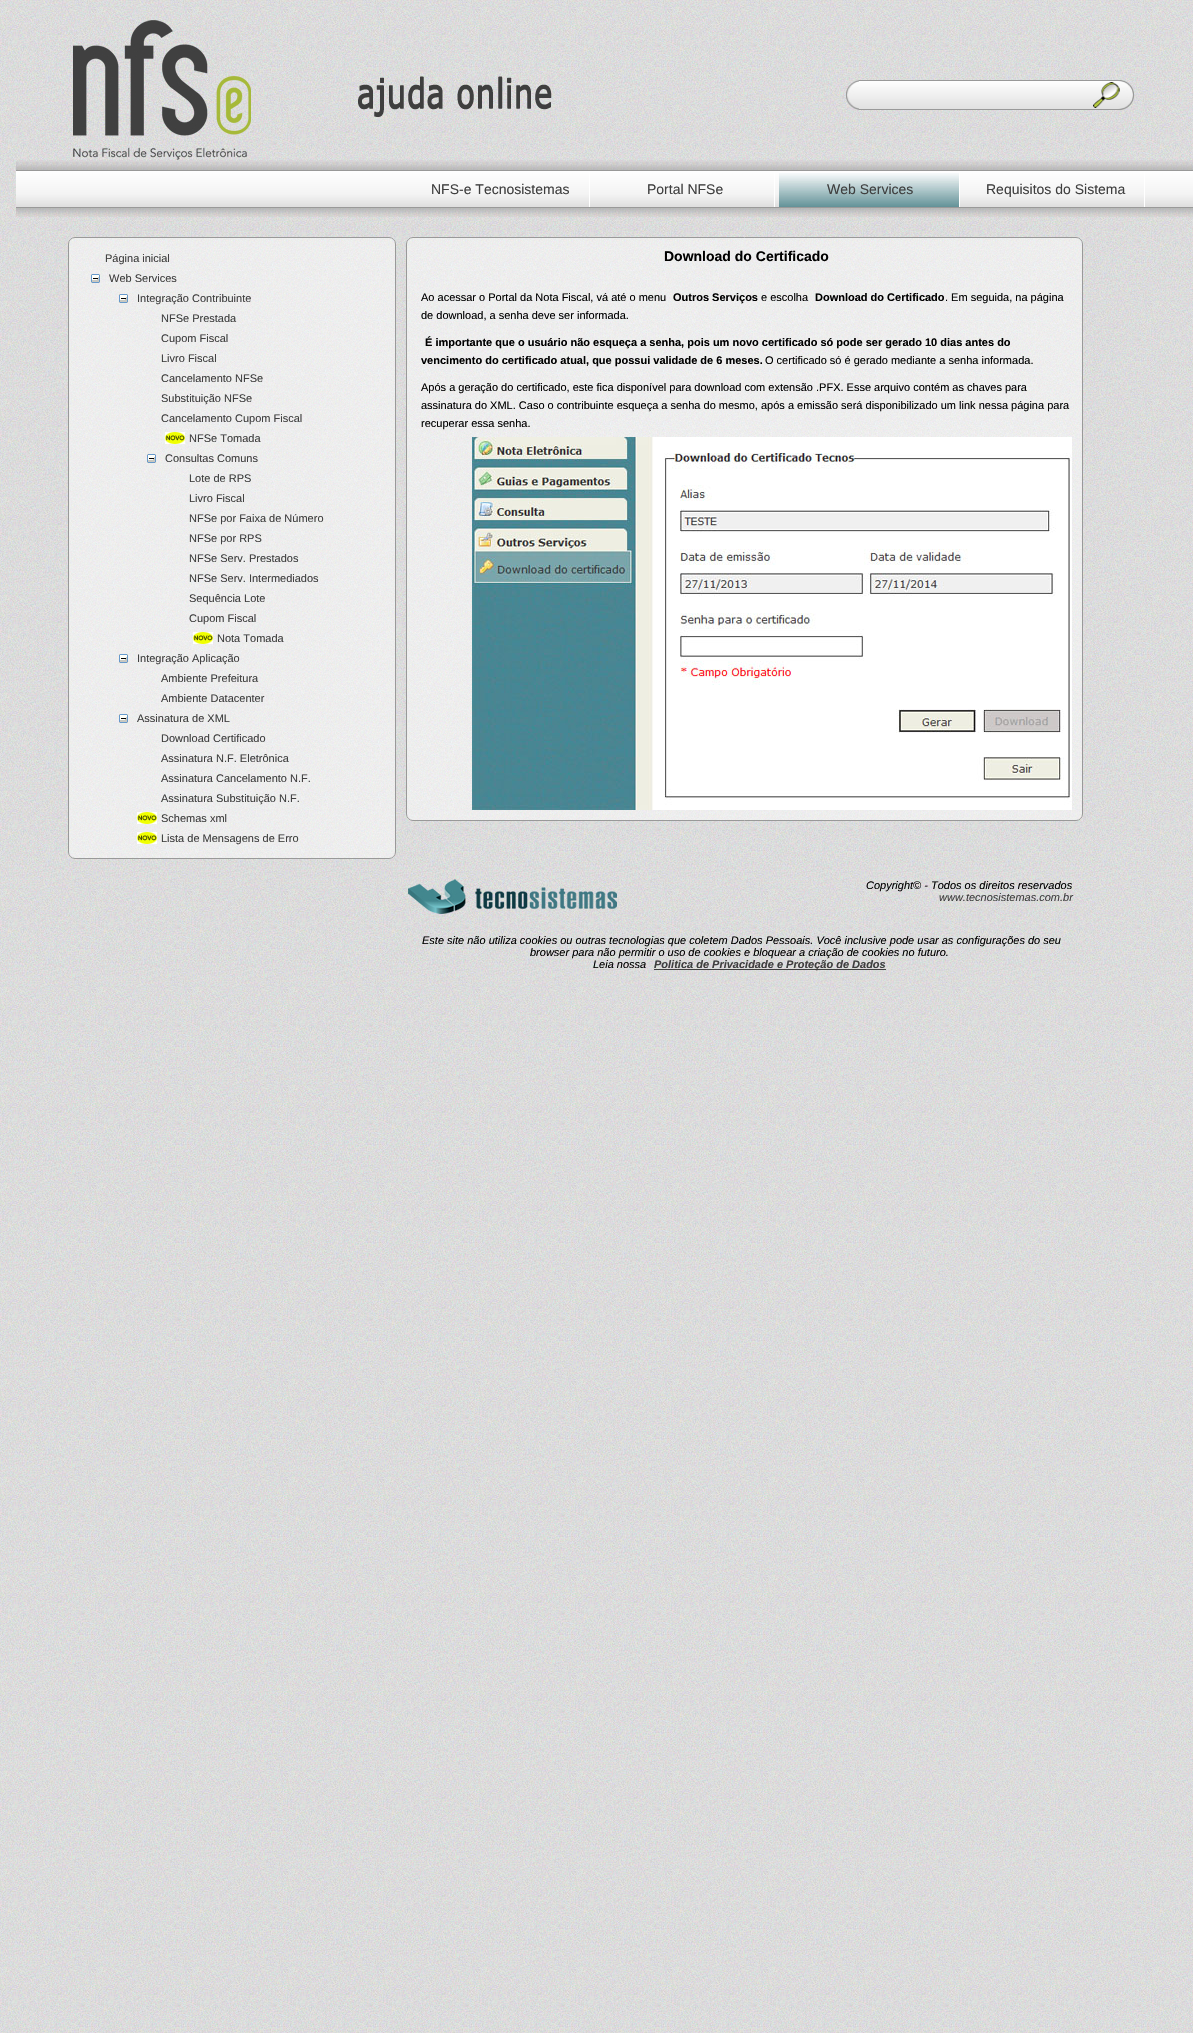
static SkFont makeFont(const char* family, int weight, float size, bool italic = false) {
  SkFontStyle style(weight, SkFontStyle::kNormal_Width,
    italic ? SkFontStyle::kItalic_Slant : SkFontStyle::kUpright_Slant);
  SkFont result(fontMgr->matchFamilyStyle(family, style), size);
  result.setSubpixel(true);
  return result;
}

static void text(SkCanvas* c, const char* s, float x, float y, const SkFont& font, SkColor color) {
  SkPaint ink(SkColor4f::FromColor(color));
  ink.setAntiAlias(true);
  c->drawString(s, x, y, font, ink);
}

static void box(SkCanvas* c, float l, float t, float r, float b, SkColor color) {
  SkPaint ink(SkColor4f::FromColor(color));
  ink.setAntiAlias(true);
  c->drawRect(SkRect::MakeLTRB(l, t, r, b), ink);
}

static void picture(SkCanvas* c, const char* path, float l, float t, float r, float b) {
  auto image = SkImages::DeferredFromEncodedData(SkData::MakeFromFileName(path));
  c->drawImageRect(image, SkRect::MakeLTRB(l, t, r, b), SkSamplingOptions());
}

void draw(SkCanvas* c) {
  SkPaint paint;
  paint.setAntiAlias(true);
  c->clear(0xffffffff);
  picture(c, "img_01.png", 0, 0, 1193, 2033);
  picture(c, "img_02.png", 72, 20, 251, 160);
  picture(c, "img_03.png", 351, 70, 566, 118);
  picture(c, "img_04.png", 846, 80, 859, 110);
  picture(c, "img_05.png", 859, 80, 1093, 110);
  picture(c, "img_06.png", 1093, 80, 1134, 110);
  picture(c, "img_07.png", 16, 160, 1193, 217);
  box(c, 589, 171, 590, 207, 0xffffffff);
  SkFont face1 = makeFont("Liberation Sans", 400, 14);
  text(c, "NFS-e Tecnosistemas", 431, 194, face1, 0xff3f3f3f);
  box(c, 774, 171, 775, 207, 0xffffffff);
  text(c, "Portal NFSe", 647, 194, face1, 0xff3f3f3f);
  picture(c, "img_08.png", 779, 173, 959, 207);
  box(c, 959, 171, 960, 207, 0xffffffff);
  text(c, "Web Services", 827, 194, face1, 0xff3f3f3f);
  box(c, 1144, 171, 1145, 207, 0xffffffff);
  text(c, "Requisitos do Sistema", 986, 194, face1, 0xff3f3f3f);
  picture(c, "img_09.png", 68, 237, 396, 859);
  paint.setStyle(SkPaint::kStroke_Style);
  paint.setStrokeWidth(1);
  paint.setColor(0xff999999);
  c->drawRoundRect(SkRect::MakeLTRB(68.5f, 237.5f, 395.5f, 858.5f), 6.5f, 6.5f, paint);
  SkFont face2 = makeFont("Liberation Sans", 400, 11);
  text(c, "Página inicial", 105, 262, face2, 0xff3f3f3f);
  picture(c, "img_10.png", 91, 274, 100, 283);
  text(c, "Web Services", 109, 282, face2, 0xff3f3f3f);
  picture(c, "img_10.png", 119, 294, 128, 303);
  text(c, "Integração Contribuinte", 137, 302, face2, 0xff3f3f3f);
  text(c, "NFSe Prestada", 161, 322, face2, 0xff3f3f3f);
  text(c, "Cupom Fiscal", 161, 342, face2, 0xff3f3f3f);
  text(c, "Livro Fiscal", 161, 362, face2, 0xff3f3f3f);
  text(c, "Cancelamento NFSe", 161, 382, face2, 0xff3f3f3f);
  text(c, "Substituição NFSe", 161, 402, face2, 0xff3f3f3f);
  text(c, "Cancelamento Cupom Fiscal", 161, 422, face2, 0xff3f3f3f);
  picture(c, "img_11.png", 165, 432, 185, 444);
  text(c, "NFSe Tomada", 189, 442, face2, 0xff3f3f3f);
  picture(c, "img_10.png", 147, 454, 156, 463);
  text(c, "Consultas Comuns", 165, 462, face2, 0xff3f3f3f);
  text(c, "Lote de RPS", 189, 482, face2, 0xff3f3f3f);
  text(c, "Livro Fiscal", 189, 502, face2, 0xff3f3f3f);
  text(c, "NFSe por Faixa de Número", 189, 522, face2, 0xff3f3f3f);
  text(c, "NFSe por RPS", 189, 542, face2, 0xff3f3f3f);
  text(c, "NFSe Serv. Prestados", 189, 562, face2, 0xff3f3f3f);
  text(c, "NFSe Serv. Intermediados", 189, 582, face2, 0xff3f3f3f);
  text(c, "Sequência Lote", 189, 602, face2, 0xff3f3f3f);
  text(c, "Cupom Fiscal", 189, 622, face2, 0xff3f3f3f);
  picture(c, "img_11.png", 193, 632, 213, 644);
  text(c, "Nota Tomada", 217, 642, face2, 0xff3f3f3f);
  picture(c, "img_10.png", 119, 654, 128, 663);
  text(c, "Integração Aplicação", 137, 662, face2, 0xff3f3f3f);
  text(c, "Ambiente Prefeitura", 161, 682, face2, 0xff3f3f3f);
  text(c, "Ambiente Datacenter", 161, 702, face2, 0xff3f3f3f);
  picture(c, "img_10.png", 119, 714, 128, 723);
  text(c, "Assinatura de XML", 137, 722, face2, 0xff3f3f3f);
  text(c, "Download Certificado", 161, 742, face2, 0xff3f3f3f);
  text(c, "Assinatura N.F. Eletrônica", 161, 762, face2, 0xff3f3f3f);
  text(c, "Assinatura Cancelamento N.F.", 161, 782, face2, 0xff3f3f3f);
  text(c, "Assinatura Substituição N.F.", 161, 802, face2, 0xff3f3f3f);
  picture(c, "img_11.png", 137, 812, 157, 824);
  text(c, "Schemas xml", 161, 822, face2, 0xff3f3f3f);
  picture(c, "img_11.png", 137, 832, 157, 844);
  text(c, "Lista de Mensagens de Erro", 161, 842, face2, 0xff3f3f3f);
  picture(c, "img_12.png", 406, 237, 1083, 821);
  c->drawRoundRect(SkRect::MakeLTRB(406.5f, 237.5f, 1082.5f, 820.5f), 6.5f, 6.5f, paint);
  SkFont face3 = makeFont("Liberation Sans", 700, 14);
  text(c, "Download do Certificado", 664, 261, face3, 0xff000000);
  text(c, "Ao acessar o Portal da Nota Fiscal, vá até o menu", 421, 301, face2, 0xff000000);
  SkFont face4 = makeFont("Liberation Sans", 700, 11);
  text(c, "Outros Serviços", 673, 301, face4, 0xff000000);
  text(c, "e escolha", 761, 301, face2, 0xff000000);
  text(c, "Download do Certificado", 815, 301, face4, 0xff000000);
  text(c, ". Em seguida, na página", 945, 301, face2, 0xff000000);
  text(c, "de download, a senha deve ser informada.", 421, 319, face2, 0xff000000);
  text(c, "É importante que o usuário não esqueça a senha, pois um novo certificado só pode ser gerado 10 dias antes do", 425, 346, face4, 0xff000000);
  text(c, "vencimento do certificado atual, que possui validade de 6 meses.", 421, 364, face4, 0xff000000);
  text(c, "O certificado só é gerado mediante a senha informada.", 765, 364, face2, 0xff000000);
  text(c, "Após a geração do certificado, este fica disponível para download com extensão .PFX. Esse arquivo contém as chaves para", 421, 391, face2, 0xff000000);
  text(c, "assinatura do XML. Caso o contribuinte esqueça a senha do mesmo, após a emissão será disponibilizado um link nessa página para", 421, 409, face2, 0xff000000);
  text(c, "recuperar essa senha.", 421, 427, face2, 0xff000000);
  picture(c, "img_13.png", 472, 437, 1072, 810);
  picture(c, "img_14.png", 407, 879, 617, 914);
  SkFont face5 = makeFont("Liberation Sans", 400, 11, true);
  text(c, "Copyright© - Todos os direitos reservados", 866, 889, face5, 0xff000000);
  text(c, "www.tecnosistemas.com.br", 939, 901, face5, 0xff3f3f3f);
  text(c, "Este site não utiliza cookies ou outras tecnologias que coletem Dados Pessoais. Você inclusive pode usar as configurações do seu", 422, 944, face5, 0xff000000);
  text(c, "browser para não permitir o uso de cookies e bloquear a criação de cookies no futuro.", 530, 956, face5, 0xff000000);
  text(c, "Leia nossa", 593, 968, face5, 0xff000000);
  box(c, 654, 969, 886, 970, 0xff3f3f3f);
  SkFont face6 = makeFont("Liberation Sans", 700, 11, true);
  text(c, "Politica de Privacidade e Proteção de Dados", 654, 968, face6, 0xff3f3f3f);
}
